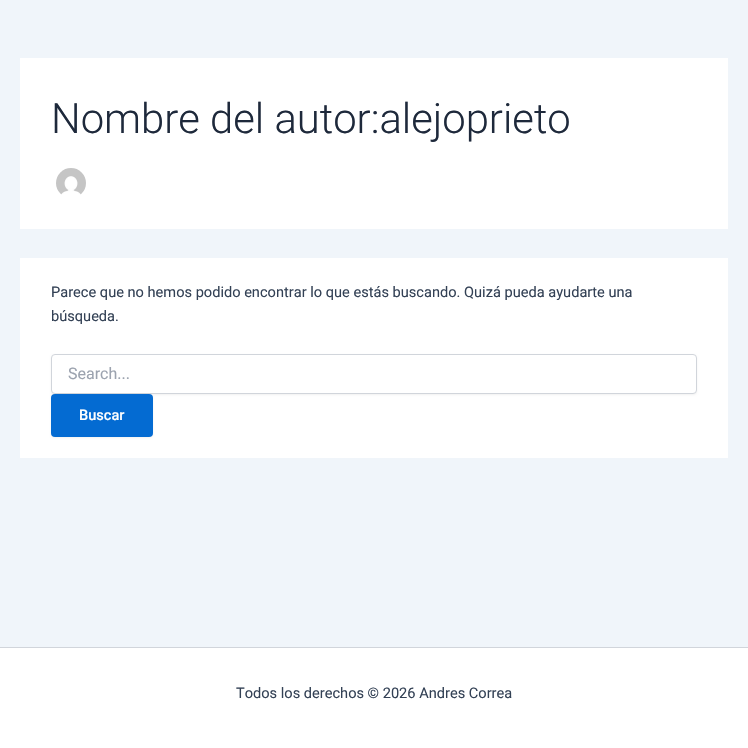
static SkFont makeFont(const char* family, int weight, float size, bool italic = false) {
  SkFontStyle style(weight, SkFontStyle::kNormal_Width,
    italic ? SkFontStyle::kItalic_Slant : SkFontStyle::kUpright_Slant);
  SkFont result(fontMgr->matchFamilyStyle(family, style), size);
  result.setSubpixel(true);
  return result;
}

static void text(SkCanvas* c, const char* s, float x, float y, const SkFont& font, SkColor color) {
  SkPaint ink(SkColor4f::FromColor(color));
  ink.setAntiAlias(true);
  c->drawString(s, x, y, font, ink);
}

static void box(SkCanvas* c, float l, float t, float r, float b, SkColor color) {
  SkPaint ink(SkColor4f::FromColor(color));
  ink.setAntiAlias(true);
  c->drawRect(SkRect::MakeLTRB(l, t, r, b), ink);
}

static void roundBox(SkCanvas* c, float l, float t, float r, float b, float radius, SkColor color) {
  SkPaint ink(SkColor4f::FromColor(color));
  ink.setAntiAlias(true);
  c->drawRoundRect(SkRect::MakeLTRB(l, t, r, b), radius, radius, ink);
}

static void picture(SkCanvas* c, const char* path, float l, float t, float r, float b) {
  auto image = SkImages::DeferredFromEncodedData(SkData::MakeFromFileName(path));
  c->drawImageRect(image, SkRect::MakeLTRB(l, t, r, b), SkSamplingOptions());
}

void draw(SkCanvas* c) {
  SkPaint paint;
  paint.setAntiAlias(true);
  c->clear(0xfff0f5fa);
  box(c, 20, 58, 728, 229, 0xffffffff);
  SkFont face1 = makeFont("Roboto", 300, 41.75f);
  text(c, "Nombre del autor:alejoprieto", 51, 133, face1, 0xff1e293b);
  picture(c, "img_01.png", 56, 168, 86, 195);
  box(c, 20, 258, 728, 458, 0xffffffff);
  SkFont face2 = makeFont("Roboto", 400, 14.6f);
  text(c, "Parece que no hemos podido encontrar lo que estás buscando. Quizá pueda ayudarte una", 51, 297, face2, 0xff334155);
  text(c, "búsqueda.", 51, 321, face2, 0xff334155);
  paint.setColor(0x0d000000);
  paint.setMaskFilter(SkMaskFilter::MakeBlur(kNormal_SkBlurStyle, 1));
  c->drawRoundRect(SkRect::MakeLTRB(51, 355, 697, 395), 4, 4, paint);
  paint.setMaskFilter(nullptr);
  paint.setColor(0xffffffff);
  c->drawRoundRect(SkRect::MakeLTRB(51.5f, 354.5f, 696.5f, 393.5f), 3.5f, 3.5f, paint);
  paint.setStyle(SkPaint::kStroke_Style);
  paint.setStrokeWidth(1);
  paint.setColor(0xffd1d5db);
  c->drawRoundRect(SkRect::MakeLTRB(51.5f, 354.5f, 696.5f, 393.5f), 3.5f, 3.5f, paint);
  SkFont face3 = makeFont("Roboto", 400, 16);
  text(c, "Search...", 68, 379, face3, 0xff9ca3af);
  paint.setStyle(SkPaint::kFill_Style);
  paint.setColor(0x0d000000);
  paint.setMaskFilter(SkMaskFilter::MakeBlur(kNormal_SkBlurStyle, 1));
  c->drawRoundRect(SkRect::MakeLTRB(51, 395, 153, 438), 4, 4, paint);
  paint.setMaskFilter(nullptr);
  roundBox(c, 51, 394, 153, 437, 4, 0xff046bd2);
  SkFont face4 = makeFont("Roboto", 500, 14.6f);
  text(c, "Buscar", 79, 420, face4, 0xffffffff);
  box(c, 0, 648, 748, 748, 0xffffffff);
  box(c, 0, 647, 748, 648, 0xffd1d5db);
  text(c, "Todos los derechos © 2026 Andres Correa", 236, 698, face2, 0xff334155);
}
